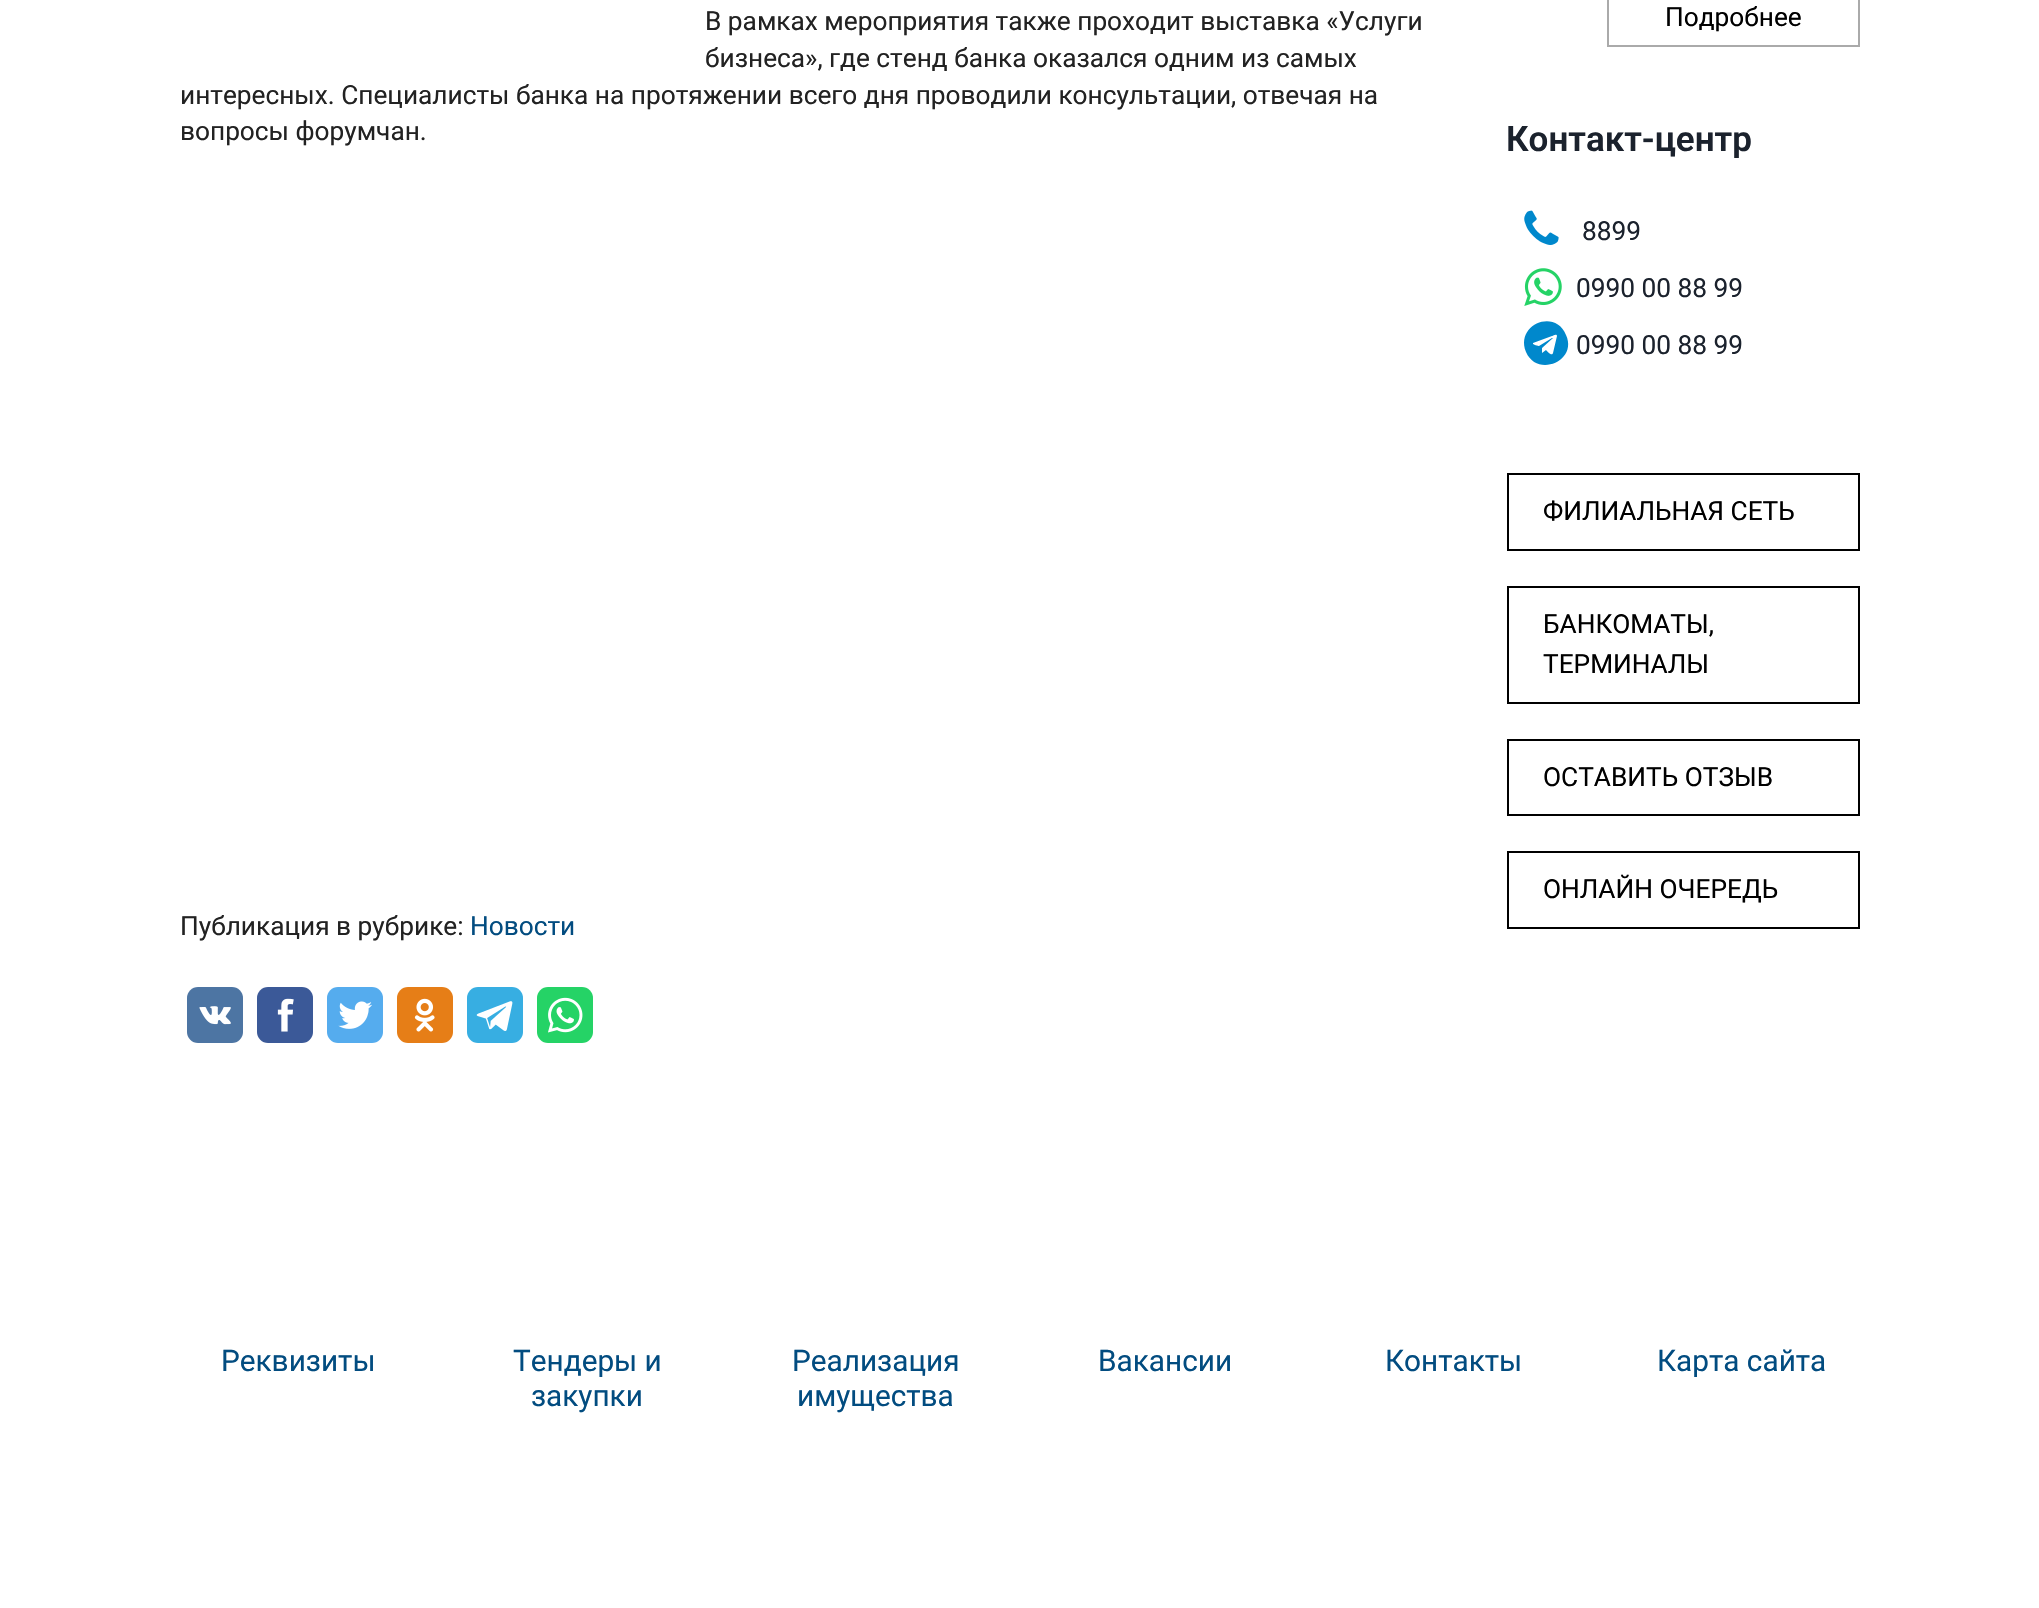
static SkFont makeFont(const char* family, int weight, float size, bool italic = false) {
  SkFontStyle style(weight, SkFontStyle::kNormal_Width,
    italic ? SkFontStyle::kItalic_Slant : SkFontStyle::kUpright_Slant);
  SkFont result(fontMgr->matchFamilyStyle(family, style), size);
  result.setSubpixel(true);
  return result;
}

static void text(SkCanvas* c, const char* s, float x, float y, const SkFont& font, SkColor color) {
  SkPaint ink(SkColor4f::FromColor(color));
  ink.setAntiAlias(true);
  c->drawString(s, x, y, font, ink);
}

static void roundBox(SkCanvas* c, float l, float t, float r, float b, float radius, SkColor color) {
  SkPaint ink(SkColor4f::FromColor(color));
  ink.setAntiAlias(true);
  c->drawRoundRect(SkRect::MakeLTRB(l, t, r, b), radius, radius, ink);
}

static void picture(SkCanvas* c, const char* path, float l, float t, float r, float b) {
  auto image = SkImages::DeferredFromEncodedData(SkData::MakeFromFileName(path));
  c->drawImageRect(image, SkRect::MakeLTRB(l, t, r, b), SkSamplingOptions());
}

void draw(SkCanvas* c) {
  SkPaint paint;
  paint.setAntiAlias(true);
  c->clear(0xffffffff);
  SkFont face1 = makeFont("Roboto", 400, 26.25f);
  text(c, "В рамках мероприятия также проходит выставка «Услуги", 705, 30, face1, 0xff222222);
  text(c, "бизнеса», где стенд банка оказался одним из самых", 705, 67, face1, 0xff222222);
  text(c, "интересных. Специалисты банка на протяжении всего дня проводили консультации, отвечая на", 180, 104, face1, 0xff222222);
  text(c, "вопросы форумчан.", 180, 140, face1, 0xff222222);
  text(c, "Публикация в рубрике:", 180, 935, face1, 0xff222222);
  text(c, "Новости", 470, 935, face1, 0xff024c80);
  roundBox(c, 187, 987, 243, 1043, 11, 0xff4d75a3);
  picture(c, "img_01.png", 199, 1006, 231, 1025);
  roundBox(c, 257, 987, 313, 1043, 11, 0xff3b5998);
  picture(c, "img_02.png", 277, 998, 294, 1032);
  roundBox(c, 327, 987, 383, 1043, 11, 0xff55acee);
  picture(c, "img_03.png", 338, 1001, 372, 1029);
  roundBox(c, 397, 987, 453, 1043, 11, 0xffe67e17);
  picture(c, "img_04.png", 414, 998, 435, 1032);
  roundBox(c, 467, 987, 523, 1043, 11, 0xff37aee2);
  picture(c, "img_05.png", 476, 1001, 513, 1031);
  roundBox(c, 537, 987, 593, 1043, 11, 0xff25d366);
  picture(c, "img_06.png", 548, 997, 583, 1033);
  paint.setStyle(SkPaint::kStroke_Style);
  paint.setStrokeWidth(2);
  paint.setColor(0xffaaaaaa);
  c->drawRect(SkRect::MakeLTRB(1608, -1, 1859, 46), paint);
  text(c, "Подробнее", 1665, 26, face1, 0xff000000);
  SkFont face2 = makeFont("Roboto", 600, 35);
  text(c, "Контакт-центр", 1506, 151, face2, 0xff1b222d);
  picture(c, "img_07.png", 1524, 210, 1559, 245);
  text(c, "8899", 1582, 240, face1, 0xff1b222d);
  picture(c, "img_08.png", 1524, 268, 1562, 306);
  text(c, "0990 00 88 99", 1576, 297, face1, 0xff1b222d);
  paint.setStyle(SkPaint::kFill_Style);
  paint.setColor(0xff0088cc);
  c->drawPath(SkPathBuilder().moveTo(1553, 353).lineTo(1557, 336).cubicTo(1557, 333, 1552, 336, 1552, 336).lineTo(1533, 343).cubicTo(1532, 345, 1539, 346, 1539, 346).lineTo(1552, 338).cubicTo(1552, 338, 1553, 338, 1553, 338).lineTo(1542, 348).lineTo(1542, 353).lineTo(1546, 350).cubicTo(1547, 351, 1552, 357, 1553, 353).close().moveTo(1566, 335).cubicTo(1578, 361, 1537, 378, 1526, 352).cubicTo(1515, 325, 1555, 308, 1566, 335).close().detach(), paint);
  text(c, "0990 00 88 99", 1576, 354, face1, 0xff1b222d);
  paint.setStyle(SkPaint::kStroke_Style);
  paint.setColor(0xff000000);
  c->drawRect(SkRect::MakeLTRB(1508, 474, 1859, 550), paint);
  text(c, "ФИЛИАЛЬНАЯ СЕТЬ", 1543, 520, face1, 0xff000000);
  c->drawRect(SkRect::MakeLTRB(1508, 587, 1859, 703), paint);
  text(c, "БАНКОМАТЫ,", 1543, 633, face1, 0xff000000);
  text(c, "ТЕРМИНАЛЫ", 1543, 673, face1, 0xff000000);
  c->drawRect(SkRect::MakeLTRB(1508, 740, 1859, 815), paint);
  text(c, "ОСТАВИТЬ ОТЗЫВ", 1543, 786, face1, 0xff000000);
  c->drawRect(SkRect::MakeLTRB(1508, 852, 1859, 928), paint);
  text(c, "ОНЛАЙН ОЧЕРЕДЬ", 1543, 898, face1, 0xff000000);
  SkFont face3 = makeFont("Roboto", 400, 29.75f);
  text(c, "Реквизиты", 221, 1371, face3, 0xff024c80);
  text(c, "Тендеры и", 513, 1371, face3, 0xff024c80);
  text(c, "закупки", 531, 1406, face3, 0xff024c80);
  text(c, "Реализация", 792, 1371, face3, 0xff024c80);
  text(c, "имущества", 797, 1406, face3, 0xff024c80);
  text(c, "Вакансии", 1098, 1371, face3, 0xff024c80);
  text(c, "Контакты", 1385, 1371, face3, 0xff024c80);
  text(c, "Карта сайта", 1657, 1371, face3, 0xff024c80);
}
